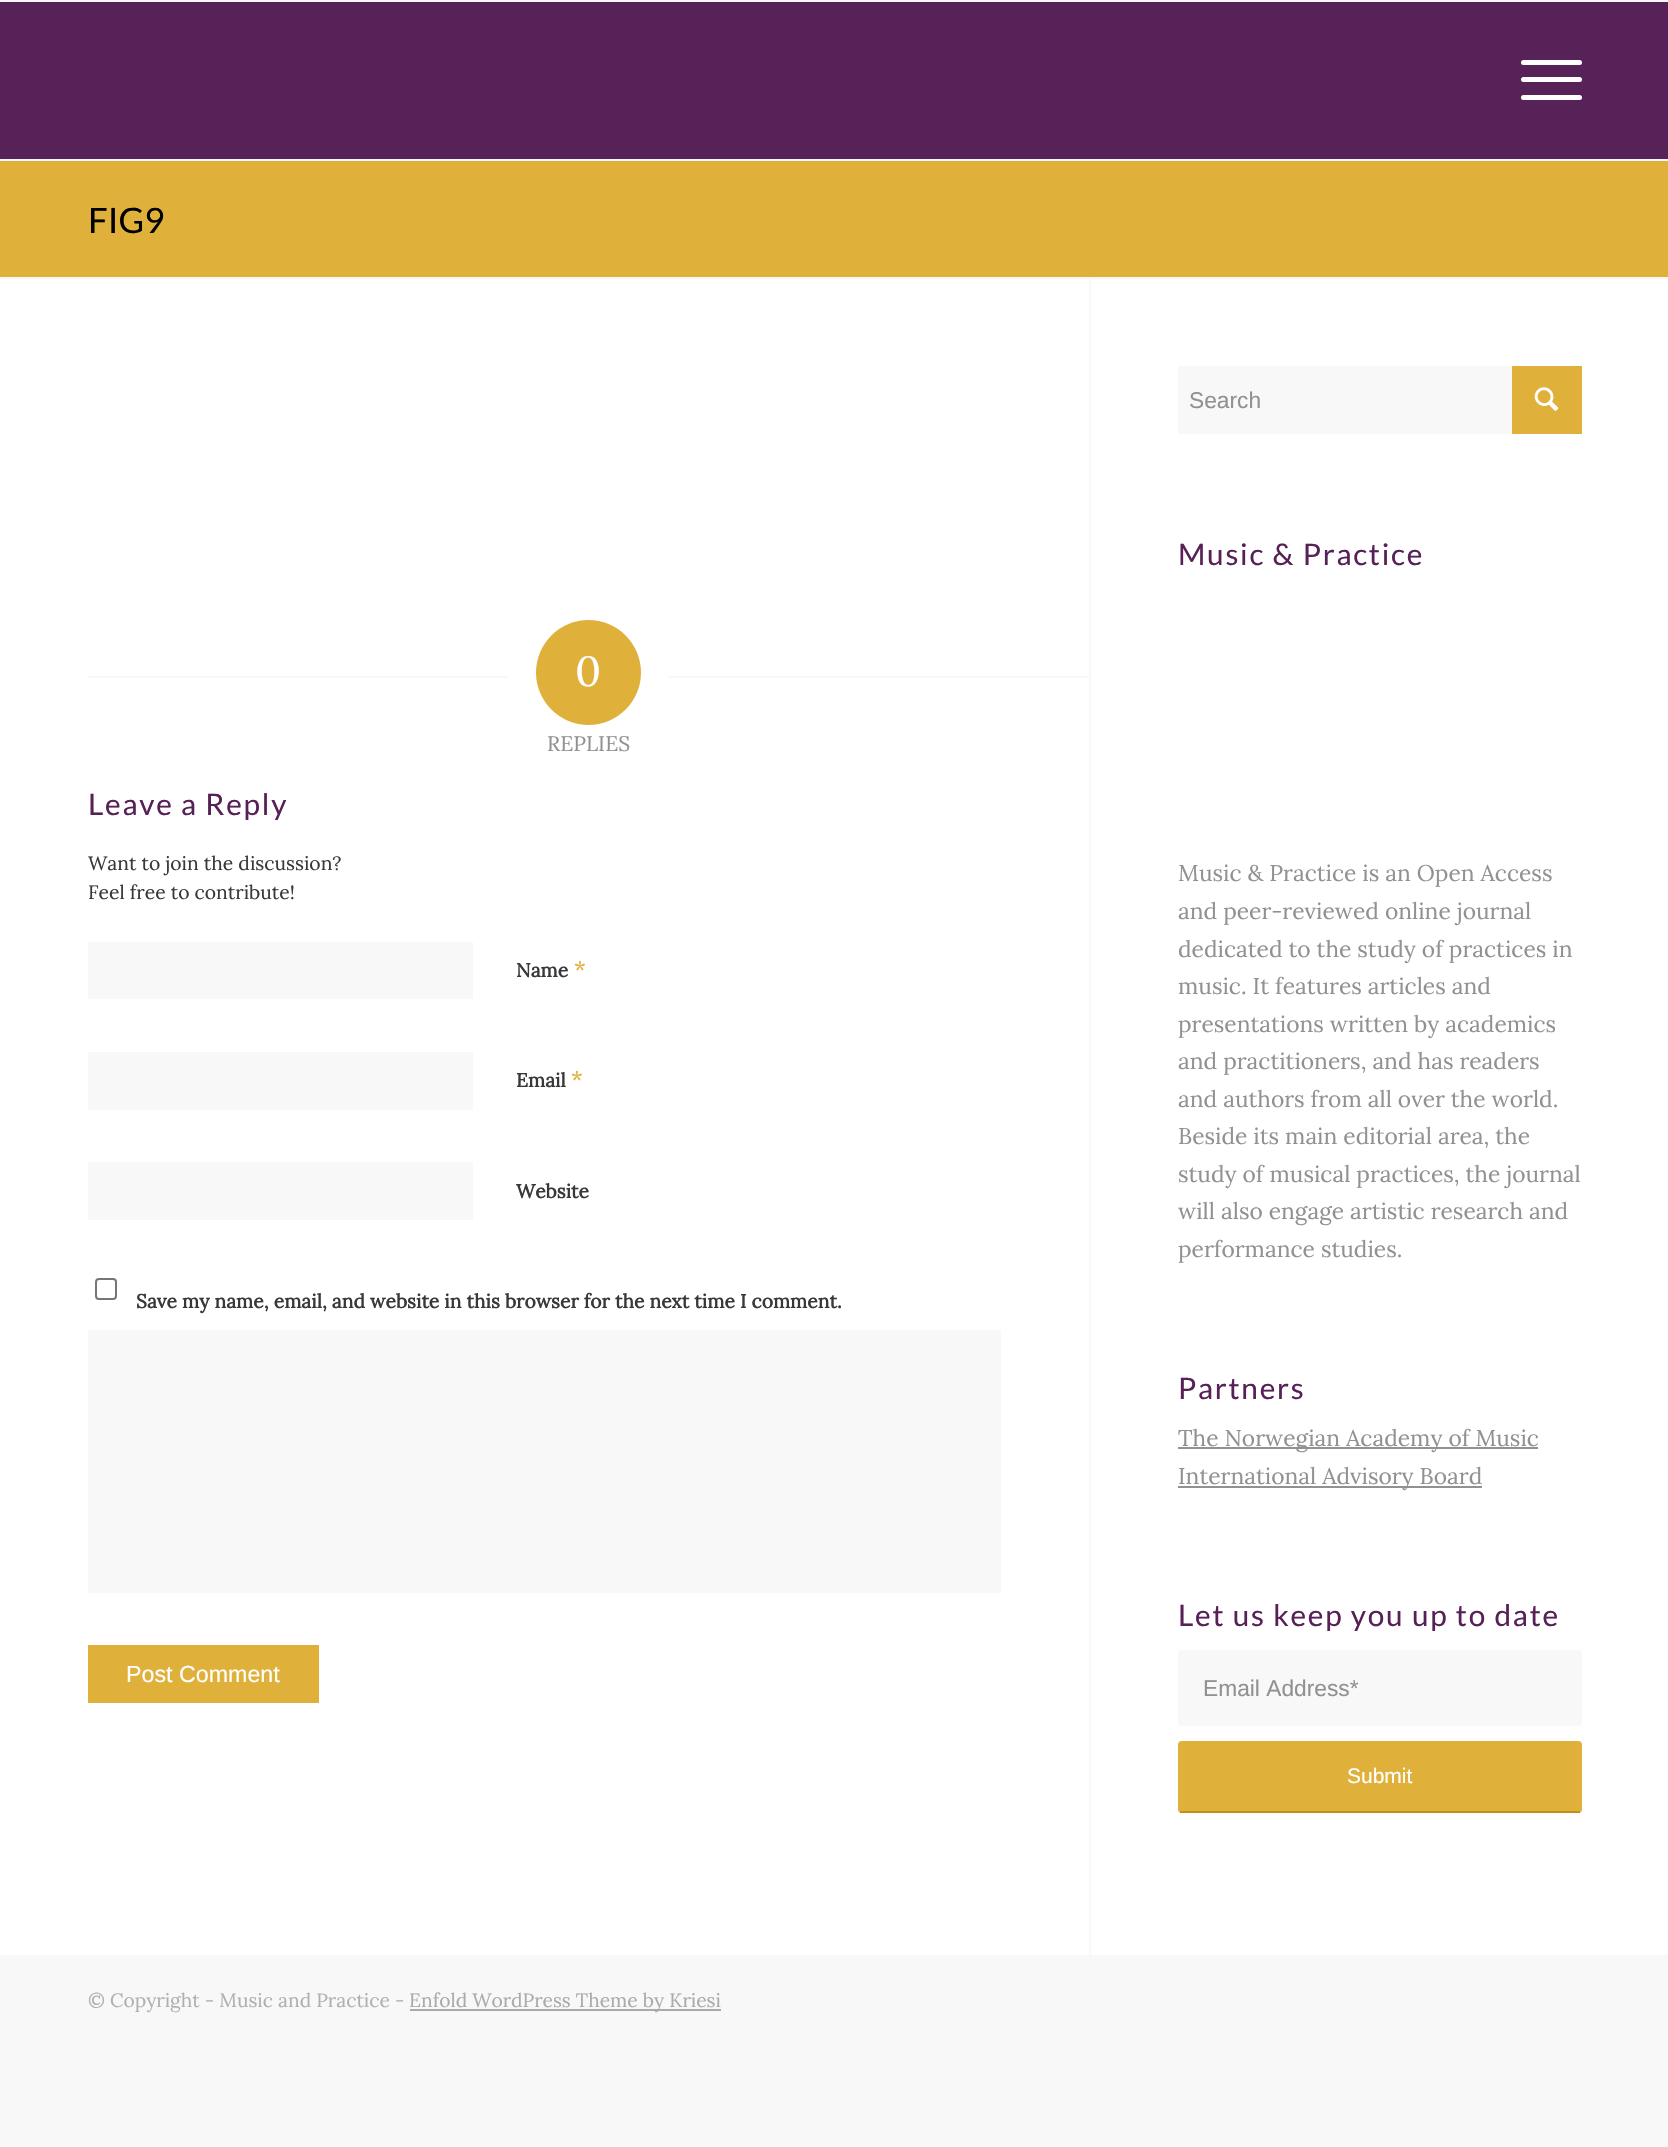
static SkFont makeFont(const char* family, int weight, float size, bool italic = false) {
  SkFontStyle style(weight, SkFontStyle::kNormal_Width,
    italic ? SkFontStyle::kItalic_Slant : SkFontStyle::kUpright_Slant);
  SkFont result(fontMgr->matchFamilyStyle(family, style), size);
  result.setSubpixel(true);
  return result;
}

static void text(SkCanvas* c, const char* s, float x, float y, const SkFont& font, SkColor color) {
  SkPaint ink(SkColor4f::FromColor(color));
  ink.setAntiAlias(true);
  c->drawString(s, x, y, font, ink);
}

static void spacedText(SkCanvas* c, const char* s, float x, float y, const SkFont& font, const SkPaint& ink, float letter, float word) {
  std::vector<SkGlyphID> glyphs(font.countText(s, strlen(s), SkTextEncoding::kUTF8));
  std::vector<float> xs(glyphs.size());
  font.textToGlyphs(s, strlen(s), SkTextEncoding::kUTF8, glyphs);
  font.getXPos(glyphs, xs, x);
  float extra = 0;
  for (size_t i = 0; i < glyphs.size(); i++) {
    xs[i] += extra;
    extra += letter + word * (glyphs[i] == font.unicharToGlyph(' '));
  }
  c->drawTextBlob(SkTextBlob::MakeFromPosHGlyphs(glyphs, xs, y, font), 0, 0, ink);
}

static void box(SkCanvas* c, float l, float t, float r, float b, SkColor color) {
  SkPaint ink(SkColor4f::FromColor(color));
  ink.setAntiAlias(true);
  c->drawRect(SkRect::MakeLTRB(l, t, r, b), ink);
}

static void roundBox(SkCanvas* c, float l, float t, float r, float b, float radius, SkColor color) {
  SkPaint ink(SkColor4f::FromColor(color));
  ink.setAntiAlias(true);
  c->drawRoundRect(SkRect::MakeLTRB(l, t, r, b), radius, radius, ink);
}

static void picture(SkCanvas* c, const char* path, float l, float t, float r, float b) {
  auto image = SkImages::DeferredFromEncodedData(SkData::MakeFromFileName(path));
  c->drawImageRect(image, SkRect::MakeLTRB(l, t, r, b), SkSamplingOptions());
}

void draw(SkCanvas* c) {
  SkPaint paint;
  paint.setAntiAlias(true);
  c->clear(0xfff8f8f8);
  box(c, 0, 2, 1668, 159, 0xff572257);
  roundBox(c, 1521, 77, 1582, 82, 2.5f, 0xffffffff);
  roundBox(c, 1521, 60, 1582, 65, 2.5f, 0xffffffff);
  roundBox(c, 1521, 95, 1582, 100, 2.5f, 0xffffffff);
  box(c, 0, 161, 1668, 277, 0xffe0b13a);
  SkFont face1 = makeFont("Lato", 400, 35);
  text(c, "FIG9", 88, 233, face1, 0xff000000);
  box(c, 0, 279, 1668, 1955, 0xffffffff);
  box(c, 88, 676, 508, 678, 0xfff8f8f8);
  paint.setColor(0xffe0b13a);
  c->drawCircle(588.5f, 672.5f, 52.5f, paint);
  SkFont face2 = makeFont("Lora", 400, 42);
  text(c, "0", 575, 686, face2, 0xffffffff);
  box(c, 669, 676, 1089, 678, 0xfff8f8f8);
  SkFont face3 = makeFont("Lora", 400, 21);
  text(c, "REPLIES", 547, 751, face3, 0xff919191);
  SkFont face4 = makeFont("Lato", 400, 29.75f);
  paint.setColor(0xff572157);
  spacedText(c, "Leave a Reply", 88, 815, face4, paint, 1.75f, 0);
  SkFont face5 = makeFont("Lora", 400, 19.3f);
  text(c, "Want to join the discussion?", 88, 870, face5, 0xff383838);
  text(c, "Feel free to contribute!", 88, 899, face5, 0xff383838);
  box(c, 88, 942, 473, 999, 0xfff8f8f8);
  SkFont face6 = makeFont("Lora", 700, 19.25f);
  text(c, "Name", 516, 977, face6, 0xff383838);
  SkFont face7 = makeFont("Lora", 400, 22.75f);
  text(c, "*", 574, 977, face7, 0xffe0b13a);
  box(c, 88, 1052, 473, 1110, 0xfff8f8f8);
  text(c, "Email", 516, 1087, face6, 0xff383838);
  text(c, "*", 571, 1087, face7, 0xffe0b13a);
  box(c, 88, 1162, 473, 1220, 0xfff8f8f8);
  text(c, "Website", 516, 1198, face6, 0xff383838);
  paint.setStyle(SkPaint::kStroke_Style);
  paint.setStrokeWidth(2);
  paint.setColor(0xff767676);
  c->drawRoundRect(SkRect::MakeLTRB(96, 1279, 116, 1299), 3, 3, paint);
  text(c, "Save my name, email, and website in this browser for the next time I comment.", 136, 1308, face6, 0xff383838);
  box(c, 88, 1330, 1001, 1593, 0xfff8f8f8);
  box(c, 88, 1645, 319, 1703, 0xffe0b13a);
  SkFont face8 = makeFont("Liberation Sans", 400, 23.25f);
  text(c, "Post Comment", 126, 1682, face8, 0xffffffff);
  box(c, 1089, 278, 1091, 1957, 0xfff8f8f8);
  box(c, 1178, 366, 1512, 434, 0xfff8f8f8);
  SkFont face9 = makeFont("Liberation Sans", 400, 22.75f);
  text(c, "Search", 1189, 408, face9, 0xff919191);
  box(c, 1512, 366, 1582, 434, 0xffe0b13a);
  picture(c, "img_01.png", 1534, 387, 1559, 411);
  paint.setStyle(SkPaint::kFill_Style);
  paint.setColor(0xff572157);
  spacedText(c, "Music & Practice", 1178, 565, face4, paint, 1.75f, 0);
  text(c, "Music & Practice is an Open Access", 1178, 881, face7, 0xff919191);
  text(c, "and peer-reviewed online journal", 1178, 919, face7, 0xff919191);
  text(c, "dedicated to the study of practices in", 1178, 957, face7, 0xff919191);
  text(c, "music. It features articles and", 1178, 994, face7, 0xff919191);
  text(c, "presentations written by academics", 1178, 1032, face7, 0xff919191);
  text(c, "and practitioners, and has readers", 1178, 1069, face7, 0xff919191);
  text(c, "and authors from all over the world.", 1178, 1107, face7, 0xff919191);
  text(c, "Beside its main editorial area, the", 1178, 1144, face7, 0xff919191);
  text(c, "study of musical practices, the journal", 1178, 1182, face7, 0xff919191);
  text(c, "will also engage artistic research and", 1178, 1219, face7, 0xff919191);
  text(c, "performance studies.", 1178, 1257, face7, 0xff919191);
  spacedText(c, "Partners", 1178, 1399, face4, paint, 1.75f, 0);
  box(c, 1178, 1447, 1538, 1449, 0xff919191);
  text(c, "The Norwegian Academy of Music", 1178, 1446, face7, 0xff919191);
  box(c, 1178, 1486, 1482, 1488, 0xff919191);
  text(c, "International Advisory Board", 1178, 1484, face7, 0xff919191);
  spacedText(c, "Let us keep you up to date", 1178, 1626, face4, paint, 1.75f, 0);
  roundBox(c, 1178, 1650, 1582, 1726, 4, 0xfff8f8f8);
  text(c, "Email Address*", 1203, 1696, face9, 0xff919191);
  roundBox(c, 1178, 1741, 1582, 1813, 4, 0xffe0b13a);
  box(c, 1180, 1811, 1580, 1813, 0xffc09018);
  SkFont face10 = makeFont("Liberation Sans", 400, 21);
  text(c, "Submit", 1347, 1783, face10, 0xffffffff);
  SkFont face11 = makeFont("Lora", 400, 19.25f);
  text(c, "© Copyright - Music and Practice -", 88, 2007, face11, 0xffb0b0b0);
  box(c, 410, 2009, 721, 2011, 0xffaaaaaa);
  text(c, "Enfold WordPress Theme by Kriesi", 409, 2007, face11, 0xffaaaaaa);
}
